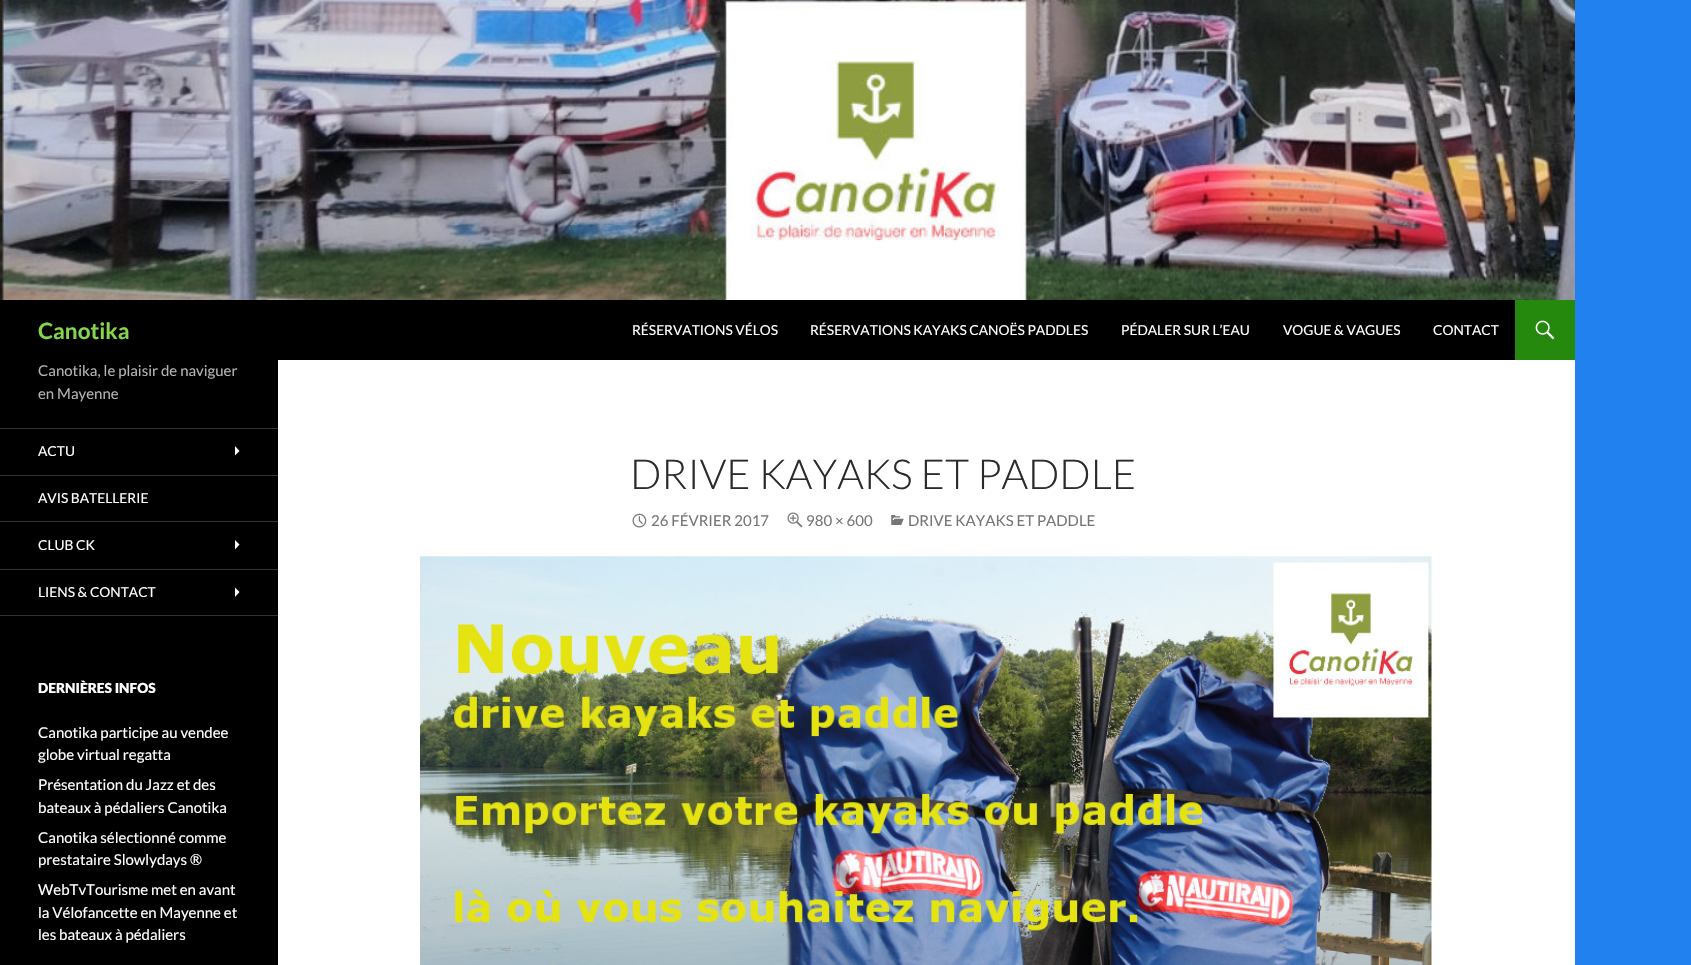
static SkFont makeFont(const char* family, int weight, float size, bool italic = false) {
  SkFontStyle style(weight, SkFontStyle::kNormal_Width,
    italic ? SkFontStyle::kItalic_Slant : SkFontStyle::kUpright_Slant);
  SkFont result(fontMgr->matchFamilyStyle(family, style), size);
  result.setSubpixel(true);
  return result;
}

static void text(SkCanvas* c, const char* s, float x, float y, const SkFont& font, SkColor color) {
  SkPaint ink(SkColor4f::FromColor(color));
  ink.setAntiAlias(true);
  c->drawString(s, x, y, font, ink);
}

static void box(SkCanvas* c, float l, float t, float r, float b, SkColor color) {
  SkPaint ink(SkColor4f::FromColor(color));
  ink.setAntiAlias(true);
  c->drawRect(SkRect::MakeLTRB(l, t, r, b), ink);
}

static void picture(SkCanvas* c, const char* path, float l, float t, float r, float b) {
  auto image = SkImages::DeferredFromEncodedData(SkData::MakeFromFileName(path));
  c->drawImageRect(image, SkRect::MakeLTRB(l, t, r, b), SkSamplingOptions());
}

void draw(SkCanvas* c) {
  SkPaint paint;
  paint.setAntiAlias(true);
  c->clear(0xff2181ef);
  box(c, 278, 360, 1575, 965, 0xffffffff);
  picture(c, "img_01.png", 0, 0, 1575, 300);
  box(c, 0, 300, 1515, 360, 0xff000000);
  SkFont face1 = makeFont("Lato", 700, 22.5f);
  text(c, "Canotika", 38, 339, face1, 0xff86d64d);
  SkFont face2 = makeFont("Lato", 400, 13.75f);
  text(c, "RÉSERVATIONS VÉLOS", 632, 335, face2, 0xffffffff);
  text(c, "RÉSERVATIONS KAYAKS CANOËS PADDLES", 810, 335, face2, 0xffffffff);
  text(c, "PÉDALER SUR L’EAU", 1121, 335, face2, 0xffffffff);
  text(c, "VOGUE & VAGUES", 1283, 335, face2, 0xffffffff);
  text(c, "CONTACT", 1433, 335, face2, 0xffffffff);
  box(c, 1515, 300, 1575, 360, 0xff24890d);
  picture(c, "img_02.png", 1535, 320, 1555, 340);
  box(c, 0, 360, 278, 965, 0xff000000);
  SkFont face3 = makeFont("Lato", 400, 15);
  text(c, "Canotika, le plaisir de naviguer", 38, 376, face3, 0xffb3b3b3);
  text(c, "en Mayenne", 38, 399, face3, 0xffb3b3b3);
  box(c, 0, 615, 278, 616, 0xff333333);
  box(c, 0, 428, 278, 429, 0xff333333);
  text(c, "ACTU", 38, 456, face2, 0xffffffff);
  paint.setColor(0xffffffff);
  c->drawPath(SkPathBuilder().moveTo(235, 455.5f).lineTo(239.5f, 451).lineTo(235, 446).close().detach(), paint);
  box(c, 0, 475, 278, 476, 0xff333333);
  text(c, "AVIS BATELLERIE", 38, 503, face2, 0xffffffff);
  box(c, 0, 521, 278, 522, 0xff333333);
  text(c, "CLUB CK", 38, 550, face2, 0xffffffff);
  c->drawPath(SkPathBuilder().moveTo(235, 549.5f).lineTo(239.5f, 544.5f).lineTo(235, 540).close().detach(), paint);
  box(c, 0, 569, 278, 570, 0xff333333);
  text(c, "LIENS & CONTACT", 38, 597, face2, 0xffffffff);
  c->drawPath(SkPathBuilder().moveTo(235, 597).lineTo(239.5f, 592).lineTo(235, 587.5f).close().detach(), paint);
  SkFont face4 = makeFont("Lato", 900, 13.75f);
  text(c, "DERNIÈRES INFOS", 38, 693, face4, 0xffffffff);
  text(c, "Canotika participe au vendee", 38, 738, face3, 0xffffffff);
  text(c, "globe virtual regatta", 38, 760, face3, 0xffffffff);
  text(c, "Présentation du Jazz et des", 38, 790, face3, 0xffffffff);
  text(c, "bateaux à pédaliers Canotika", 38, 813, face3, 0xffffffff);
  text(c, "Canotika sélectionné comme", 38, 843, face3, 0xffffffff);
  text(c, "prestataire Slowlydays ®", 38, 865, face3, 0xffffffff);
  text(c, "WebTvTourisme met en avant", 38, 895, face3, 0xffffffff);
  text(c, "la Vélofancette en Mayenne et", 38, 918, face3, 0xffffffff);
  text(c, "les bateaux à pédaliers", 38, 940, face3, 0xffffffff);
  SkFont face5 = makeFont("Lato", 300, 41.25f);
  text(c, "DRIVE KAYAKS ET PADDLE", 630, 489, face5, 0xff2b2b2b);
  picture(c, "img_03.png", 632, 513, 647, 528);
  text(c, "26 FÉVRIER 2017", 651, 526, face3, 0xff767676);
  picture(c, "img_04.png", 787, 512, 803, 528);
  text(c, "980 × 600", 806, 526, face3, 0xff767676);
  picture(c, "img_05.png", 891, 515, 904, 525);
  text(c, "DRIVE KAYAKS ET PADDLE", 908, 526, face3, 0xff767676);
  picture(c, "img_06.png", 420, 556, 1433, 965);
}
